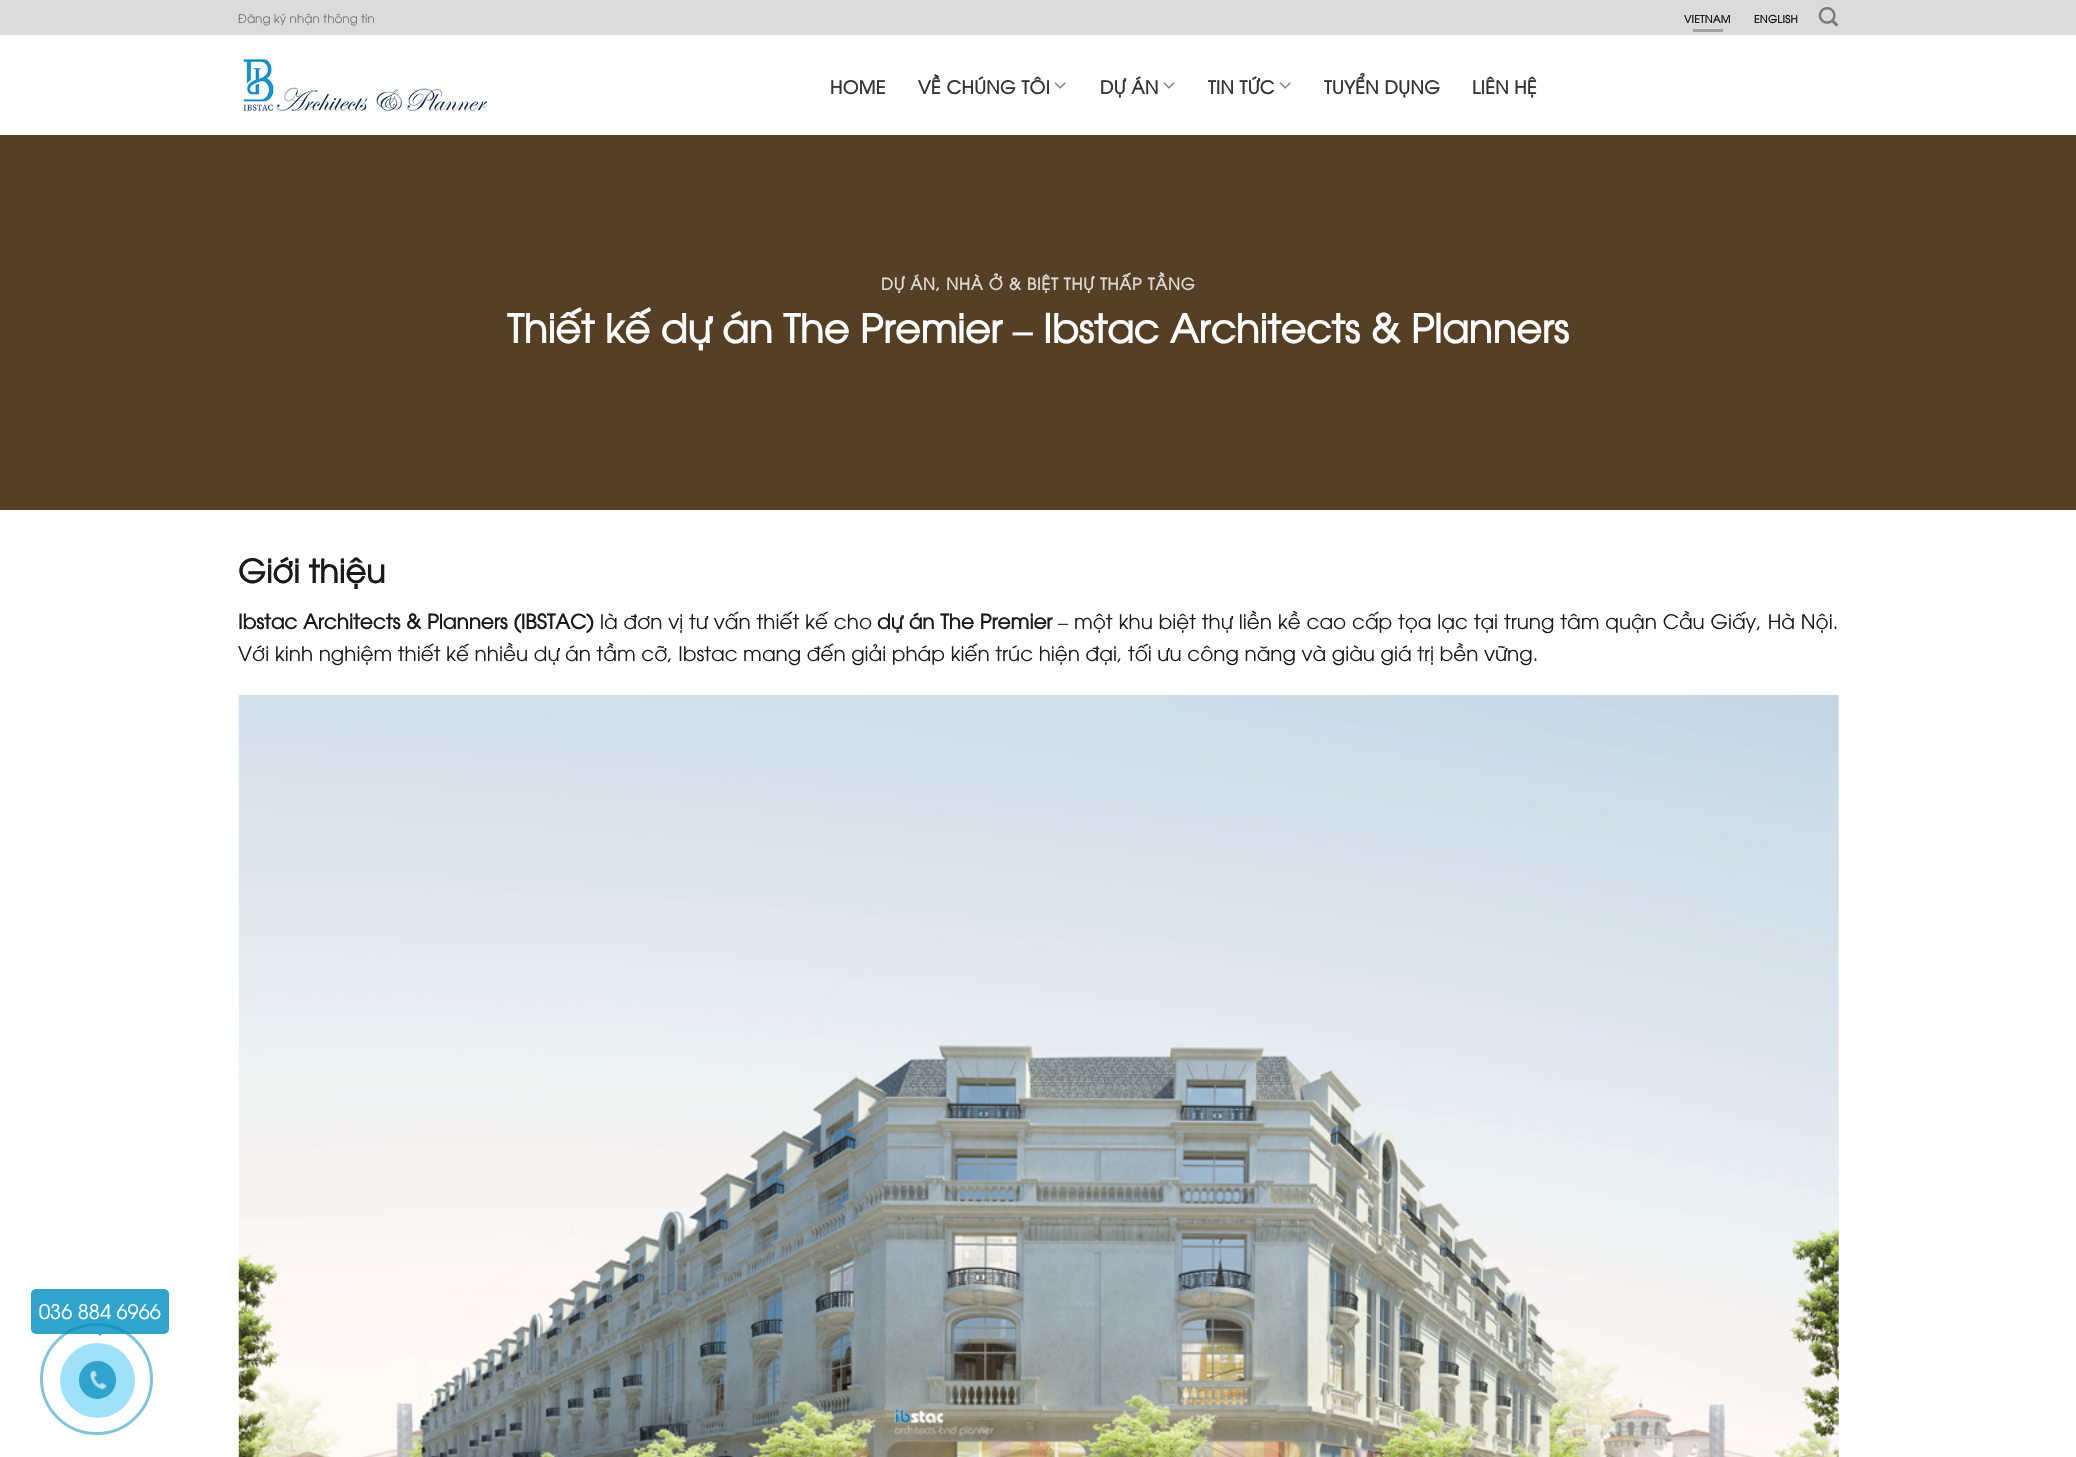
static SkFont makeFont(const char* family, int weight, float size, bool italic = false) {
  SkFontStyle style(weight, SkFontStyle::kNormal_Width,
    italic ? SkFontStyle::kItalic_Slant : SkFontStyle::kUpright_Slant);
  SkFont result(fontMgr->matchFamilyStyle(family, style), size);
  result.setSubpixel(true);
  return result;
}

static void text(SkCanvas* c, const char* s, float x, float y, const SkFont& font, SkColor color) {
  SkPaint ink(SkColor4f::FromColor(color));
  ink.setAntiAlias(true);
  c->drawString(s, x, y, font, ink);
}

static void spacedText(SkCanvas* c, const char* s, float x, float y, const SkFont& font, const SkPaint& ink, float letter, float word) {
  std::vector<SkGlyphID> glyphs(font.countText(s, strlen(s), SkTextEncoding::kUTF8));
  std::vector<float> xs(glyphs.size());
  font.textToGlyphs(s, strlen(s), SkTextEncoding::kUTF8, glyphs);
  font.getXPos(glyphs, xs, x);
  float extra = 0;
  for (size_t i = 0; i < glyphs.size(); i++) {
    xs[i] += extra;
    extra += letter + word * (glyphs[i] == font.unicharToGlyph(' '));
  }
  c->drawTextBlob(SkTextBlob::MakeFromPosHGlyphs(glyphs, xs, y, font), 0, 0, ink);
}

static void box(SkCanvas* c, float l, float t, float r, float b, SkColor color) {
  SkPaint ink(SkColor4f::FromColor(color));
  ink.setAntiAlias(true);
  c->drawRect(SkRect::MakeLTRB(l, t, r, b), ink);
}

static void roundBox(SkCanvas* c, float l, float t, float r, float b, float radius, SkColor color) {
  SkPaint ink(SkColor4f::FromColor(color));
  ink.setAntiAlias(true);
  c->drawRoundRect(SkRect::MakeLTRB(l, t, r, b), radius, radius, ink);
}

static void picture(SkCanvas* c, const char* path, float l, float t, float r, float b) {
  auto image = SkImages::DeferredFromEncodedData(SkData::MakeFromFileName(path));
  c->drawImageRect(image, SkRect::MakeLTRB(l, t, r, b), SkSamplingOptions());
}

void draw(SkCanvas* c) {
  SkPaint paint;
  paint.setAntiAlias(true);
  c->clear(0xffffffff);
  box(c, 0, 0, 2076, 35, 0xffdbdbdb);
  SkFont face1 = makeFont("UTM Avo", 400, 12);
  text(c, "Đăng ký nhận thông tin", 238, 23, face1, 0xff787878);
  SkFont face2 = makeFont("UTM Avo", 700, 10.5f);
  paint.setColor(0xff1a1a1a);
  spacedText(c, "VIETNAM", 1684, 23, face2, paint, 0.25f, 0);
  box(c, 1693, 29, 1723, 32, 0xffa1a1a1);
  spacedText(c, "ENGLISH", 1754, 23, face2, paint, 0.25f, 0);
  picture(c, "img_01.png", 1818, 7, 1838, 27);
  picture(c, "img_02.png", 243, 59, 488, 112);
  SkFont face3 = makeFont("UTM Avo", 700, 18);
  paint.setColor(0xff333333);
  spacedText(c, "HOME", 830, 94, face3, paint, 0.4f, 0);
  spacedText(c, "VỀ CHÚNG TÔI", 918, 94, face3, paint, 0.4f, 0);
  picture(c, "img_03.png", 1054, 82, 1066, 89);
  spacedText(c, "DỰ ÁN", 1100, 94, face3, paint, 0.4f, 0);
  picture(c, "img_04.png", 1163, 82, 1175, 89);
  spacedText(c, "TIN TỨC", 1208, 94, face3, paint, 0.4f, 0);
  picture(c, "img_03.png", 1279, 82, 1291, 89);
  spacedText(c, "TUYỂN DỤNG", 1324, 94, face3, paint, 0.4f, 0);
  spacedText(c, "LIÊN HỆ", 1472, 94, face3, paint, 0.4f, 0);
  box(c, 0, 135, 2076, 510, 0xff554025);
  SkFont face4 = makeFont("UTM Avo", 700, 16.1f);
  paint.setColor(0xffddd9d3);
  spacedText(c, "DỰ ÁN, NHÀ Ở & BIỆT THỰ THẤP TẦNG", 881, 290, face4, paint, 0.8f, 0);
  SkFont face5 = makeFont("UTM Avo", 700, 39.1f);
  text(c, "Thiết kế dự án The Premier", 507, 343, face5, 0xffffffff);
  SkFont face6 = makeFont("Liberation Serif", 700, 39.1f);
  text(c, "–", 1013, 343, face6, 0xffffffff);
  text(c, "Ibstac Architects & Planners", 1043, 343, face5, 0xffffffff);
  SkFont face7 = makeFont("UTM Avo", 700, 32);
  text(c, "Giới thiệu", 238, 583, face7, 0xff1a1a1a);
  SkFont face8 = makeFont("UTM Avo", 700, 20);
  paint.setColor(0xff1a1a1a);
  spacedText(c, "Ibstac Architects & Planners (IBSTAC)", 238, 629, face8, paint, 0, 0.25f);
  SkFont face9 = makeFont("UTM Avo", 400, 20);
  spacedText(c, "là đơn vị tư vấn thiết kế cho", 600, 629, face9, paint, 0, 0.25f);
  spacedText(c, "dự án The Premier", 877, 629, face8, paint, 0, 0.25f);
  SkFont face10 = makeFont("Liberation Serif", 400, 20);
  text(c, "–", 1058, 629, face10, 0xff1a1a1a);
  spacedText(c, "một khu biệt thự liền kề cao cấp tọa lạc tại trung tâm quận Cầu Giấy, Hà Nội.", 1074, 629, face9, paint, 0, 0.25f);
  text(c, "Với kinh nghiệm thiết kế nhiều dự án tầm cỡ, Ibstac mang đến giải pháp kiến trúc hiện đại, tối ưu công năng và giàu giá trị bền vững.", 238, 661, face9, 0xff1a1a1a);
  picture(c, "img_05.png", 238, 695, 1839, 1457);
  roundBox(c, 31, 1289, 169, 1334, 5, 0xff30a4cc);
  text(c, "036 884 6966", 39, 1319, face9, 0xffffffff);
  paint.setColor(0xff30a4cc);
  c->drawPath(SkPathBuilder().moveTo(87.5f, 1324).lineTo(112.5f, 1324).lineTo(100, 1336).close().detach(), paint);
  paint.setStyle(SkPaint::kStroke_Style);
  paint.setStrokeWidth(3);
  paint.setColor(0x800089b9);
  c->drawRoundRect(SkRect::MakeLTRB(41.5f, 1324.5f, 151.5f, 1433.5f), 54.5f, 54.5f, paint);
  paint.setStyle(SkPaint::kFill_Style);
  paint.setColor(0xffa0e1fa);
  c->drawCircle(97.5f, 1380.5f, 37.5f, paint);
  roundBox(c, 79, 1361, 116, 1399, 18.5f, 0xff30a3cd);
  picture(c, "img_06.png", 89, 1370, 107, 1390);
}
